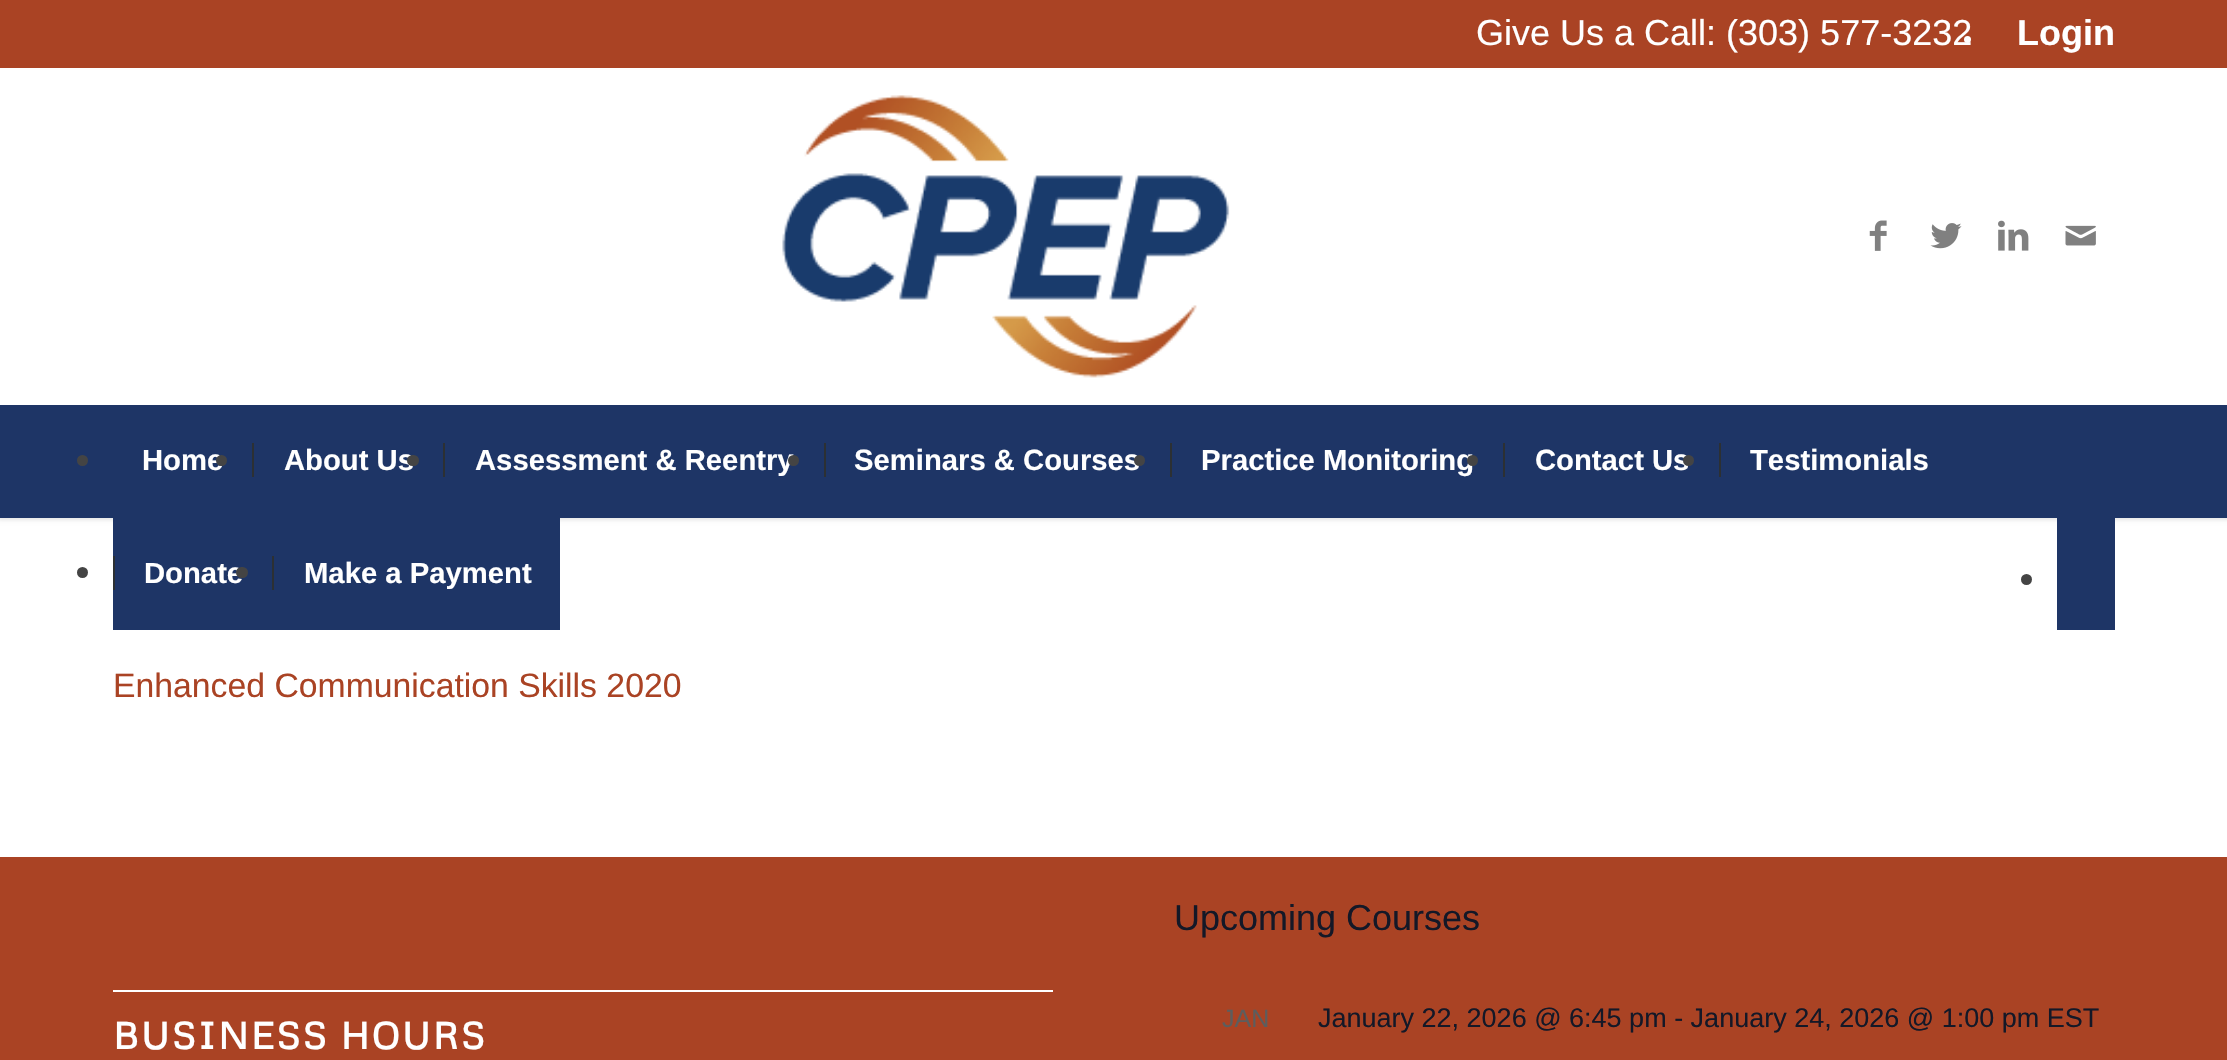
static SkFont makeFont(const char* family, int weight, float size, bool italic = false) {
  SkFontStyle style(weight, SkFontStyle::kNormal_Width,
    italic ? SkFontStyle::kItalic_Slant : SkFontStyle::kUpright_Slant);
  SkFont result(fontMgr->matchFamilyStyle(family, style), size);
  result.setSubpixel(true);
  return result;
}

static void text(SkCanvas* c, const char* s, float x, float y, const SkFont& font, SkColor color) {
  SkPaint ink(SkColor4f::FromColor(color));
  ink.setAntiAlias(true);
  c->drawString(s, x, y, font, ink);
}

static void spacedText(SkCanvas* c, const char* s, float x, float y, const SkFont& font, const SkPaint& ink, float letter, float word) {
  std::vector<SkGlyphID> glyphs(font.countText(s, strlen(s), SkTextEncoding::kUTF8));
  std::vector<float> xs(glyphs.size());
  font.textToGlyphs(s, strlen(s), SkTextEncoding::kUTF8, glyphs);
  font.getXPos(glyphs, xs, x);
  float extra = 0;
  for (size_t i = 0; i < glyphs.size(); i++) {
    xs[i] += extra;
    extra += letter + word * (glyphs[i] == font.unicharToGlyph(' '));
  }
  c->drawTextBlob(SkTextBlob::MakeFromPosHGlyphs(glyphs, xs, y, font), 0, 0, ink);
}

static void box(SkCanvas* c, float l, float t, float r, float b, SkColor color) {
  SkPaint ink(SkColor4f::FromColor(color));
  ink.setAntiAlias(true);
  c->drawRect(SkRect::MakeLTRB(l, t, r, b), ink);
}

static void roundBox(SkCanvas* c, float l, float t, float r, float b, float radius, SkColor color) {
  SkPaint ink(SkColor4f::FromColor(color));
  ink.setAntiAlias(true);
  c->drawRoundRect(SkRect::MakeLTRB(l, t, r, b), radius, radius, ink);
}

static void picture(SkCanvas* c, const char* path, float l, float t, float r, float b) {
  auto image = SkImages::DeferredFromEncodedData(SkData::MakeFromFileName(path));
  c->drawImageRect(image, SkRect::MakeLTRB(l, t, r, b), SkSamplingOptions());
}

void draw(SkCanvas* c) {
  SkPaint paint;
  paint.setAntiAlias(true);
  c->clear(0xffffffff);
  paint.setColor(0x1a000000);
  paint.setMaskFilter(SkMaskFilter::MakeBlur(kNormal_SkBlurStyle, 2));
  c->drawRect(SkRect::MakeLTRB(-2, -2, 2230, 520), paint);
  paint.setMaskFilter(nullptr);
  box(c, 0, 0, 2227, 68, 0xffaa4324);
  SkFont face1 = makeFont("Liberation Sans", 400, 36);
  text(c, "Give Us a Call: (303) 577-3232", 1476, 45, face1, 0xffffffff);
  paint.setColor(0xffffffff);
  c->drawCircle(1967.5f, 39.5f, 3.5f, paint);
  SkFont face2 = makeFont("Liberation Sans", 700, 36);
  text(c, "Login", 2017, 45, face2, 0xffffffff);
  box(c, 0, 68, 2227, 405, 0xffffffff);
  picture(c, "img_01.png", 782, 95, 1230, 378);
  picture(c, "img_02.png", 1869, 220, 1887, 251);
  picture(c, "img_03.png", 1930, 223, 1962, 249);
  picture(c, "img_04.png", 1998, 220, 2029, 251);
  picture(c, "img_05.png", 2065, 225, 2096, 246);
  box(c, 0, 405, 2227, 518, 0xff1e3566);
  paint.setColor(0xff444444);
  c->drawCircle(82.5f, 460.5f, 5.5f, paint);
  SkFont face3 = makeFont("Liberation Sans", 700, 29.25f);
  text(c, "Home", 142, 470, face3, 0xffffffff);
  c->drawCircle(221.5f, 460.5f, 5.5f, paint);
  text(c, "About Us", 284, 470, face3, 0xffffffff);
  box(c, 252, 443, 254, 477, 0xff2c3033);
  roundBox(c, 407, 455, 419, 466, 5.5f, 0xff444444);
  text(c, "Assessment & Reentry", 475, 470, face3, 0xffffffff);
  box(c, 443, 443, 445, 477, 0xff2c3033);
  c->drawCircle(793.5f, 460.5f, 5.5f, paint);
  text(c, "Seminars & Courses", 854, 470, face3, 0xffffffff);
  box(c, 824, 443, 826, 477, 0xff2c3033);
  c->drawCircle(1139.5f, 460.5f, 5.5f, paint);
  text(c, "Practice Monitoring", 1201, 470, face3, 0xffffffff);
  box(c, 1170, 443, 1172, 477, 0xff2c3033);
  c->drawCircle(1472.5f, 460.5f, 5.5f, paint);
  text(c, "Contact Us", 1535, 470, face3, 0xffffffff);
  box(c, 1503, 443, 1505, 477, 0xff2c3033);
  c->drawCircle(1688.5f, 460.5f, 5.5f, paint);
  text(c, "Testimonials", 1750, 470, face3, 0xffffffff);
  box(c, 1719, 443, 1721, 477, 0xff2c3033);
  c->drawCircle(82.5f, 572.5f, 5.5f, paint);
  box(c, 113, 518, 560, 630, 0xff1e3566);
  text(c, "Donate", 144, 583, face3, 0xffffffff);
  box(c, 113, 556, 115, 590, 0xff2c3033);
  roundBox(c, 236, 567, 248, 578, 5.5f, 0xff444444);
  text(c, "Make a Payment", 304, 583, face3, 0xffffffff);
  box(c, 272, 556, 274, 590, 0xff2c3033);
  c->drawCircle(2026.5f, 579.5f, 5.5f, paint);
  box(c, 2057, 518, 2115, 630, 0xff1e3566);
  SkFont face4 = makeFont("Liberation Sans", 400, 33.75f);
  text(c, "Enhanced Communication Skills 2020", 113, 697, face4, 0xffaa4324);
  box(c, 0, 857, 2227, 1060, 0xffaa4324);
  text(c, "Upcoming Courses", 1174, 930, face1, 0xff141827);
  SkFont face5 = makeFont("Liberation Sans", 400, 25);
  text(c, "JAN", 1222, 1027, face5, 0xff5d5d5d);
  SkFont face6 = makeFont("Liberation Sans", 400, 27);
  text(c, "January 22, 2026 @ 6:45 pm - January 24, 2026 @ 1:00 pm EST", 1318, 1027, face6, 0xff141827);
  box(c, 113, 990, 1053, 992, 0xffffffff);
  SkFont face7 = makeFont("Metrophobic", 700, 37.1f);
  paint.setColor(0xffffffff);
  spacedText(c, "BUSINESS HOURS", 113, 1049, face7, paint, 2.25f, 0);
}
